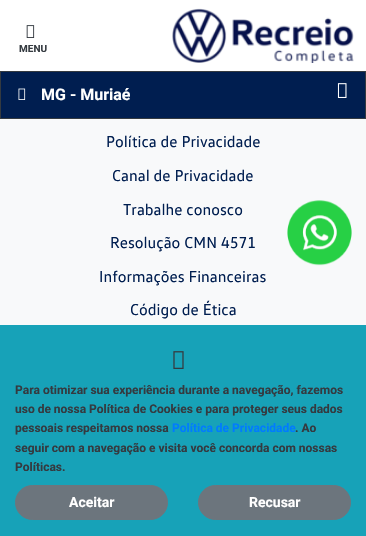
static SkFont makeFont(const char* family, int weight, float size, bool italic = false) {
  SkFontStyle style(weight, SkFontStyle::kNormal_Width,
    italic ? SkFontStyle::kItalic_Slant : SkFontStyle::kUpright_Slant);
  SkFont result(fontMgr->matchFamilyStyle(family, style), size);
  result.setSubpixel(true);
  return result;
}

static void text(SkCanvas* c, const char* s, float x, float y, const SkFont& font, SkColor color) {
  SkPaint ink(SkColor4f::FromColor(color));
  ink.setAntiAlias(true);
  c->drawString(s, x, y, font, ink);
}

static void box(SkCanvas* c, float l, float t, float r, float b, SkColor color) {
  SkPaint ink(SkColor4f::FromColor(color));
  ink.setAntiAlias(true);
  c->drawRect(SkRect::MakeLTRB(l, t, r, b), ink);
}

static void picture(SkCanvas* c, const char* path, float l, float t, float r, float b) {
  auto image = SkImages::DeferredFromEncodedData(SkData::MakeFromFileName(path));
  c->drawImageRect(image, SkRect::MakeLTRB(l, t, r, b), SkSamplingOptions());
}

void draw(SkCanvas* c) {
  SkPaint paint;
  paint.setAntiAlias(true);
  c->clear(0xfff8f9fa);
  box(c, 0, 0, 366, 71, 0xffffffff);
  picture(c, "img_01.png", 26, 25, 35, 38);
  SkFont face1 = makeFont("Roboto", 700, 10);
  text(c, "MENU", 19, 52, face1, 0xff343a40);
  picture(c, "img_02.png", 172, 8, 354, 63);
  paint.setColor(0xff001e50);
  c->drawRect(SkRect::MakeLTRB(0.5f, 71.5f, 365.5f, 118.5f), paint);
  paint.setStyle(SkPaint::kStroke_Style);
  paint.setStrokeWidth(1);
  paint.setColor(0xff343a40);
  c->drawRect(SkRect::MakeLTRB(0.5f, 71.5f, 365.5f, 118.5f), paint);
  picture(c, "img_03.png", 18, 88, 26, 100);
  SkFont face2 = makeFont("Roboto", 700, 16);
  text(c, "MG - Muriaé", 41, 100, face2, 0xffffffff);
  picture(c, "img_04.png", 337, 83, 347, 98);
  SkFont face3 = makeFont("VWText", 400, 16);
  text(c, "Política de Privacidade", 106, 147, face3, 0xff001e50);
  text(c, "Canal de Privacidade", 112, 181, face3, 0xff001e50);
  text(c, "Trabalhe conosco", 123, 215, face3, 0xff001e50);
  text(c, "Resolução CMN 4571", 110, 248, face3, 0xff001e50);
  text(c, "Informações Financeiras", 99, 282, face3, 0xff001e50);
  text(c, "Código de Ética", 130, 315, face3, 0xff001e50);
  picture(c, "img_05.png", 287, 200, 352, 266);
  box(c, 0, 325, 366, 536, 0xff17a2b8);
  picture(c, "img_06.png", 173, 351, 184, 369);
  SkFont face4 = makeFont("Roboto", 700, 12);
  text(c, "Para otimizar sua experiência durante a navegação, fazemos", 15, 394, face4, 0xff343a40);
  text(c, "uso de nossa Política de Cookies e para proteger seus dados", 15, 413, face4, 0xff343a40);
  text(c, "pessoais respeitamos nossa", 15, 432, face4, 0xff343a40);
  text(c, "Política de Privacidade", 172, 432, face4, 0xff007bff);
  text(c, ". Ao", 295, 432, face4, 0xff343a40);
  text(c, "seguir com a navegação e visita você concorda com nossas", 15, 452, face4, 0xff343a40);
  text(c, "Políticas.", 15, 471, face4, 0xff343a40);
  paint.setStyle(SkPaint::kFill_Style);
  paint.setColor(0xff6c757d);
  c->drawRoundRect(SkRect::MakeLTRB(15.5f, 485.5f, 167.5f, 519.5f), 17, 17, paint);
  paint.setStyle(SkPaint::kStroke_Style);
  c->drawRoundRect(SkRect::MakeLTRB(15.5f, 485.5f, 167.5f, 519.5f), 17, 17, paint);
  SkFont face5 = makeFont("Roboto", 700, 14);
  text(c, "Aceitar", 69, 507, face5, 0xffffffff);
  paint.setStyle(SkPaint::kFill_Style);
  c->drawRoundRect(SkRect::MakeLTRB(198.5f, 485.5f, 350.5f, 519.5f), 17, 17, paint);
  paint.setStyle(SkPaint::kStroke_Style);
  c->drawRoundRect(SkRect::MakeLTRB(198.5f, 485.5f, 350.5f, 519.5f), 17, 17, paint);
  text(c, "Recusar", 249, 507, face5, 0xffffffff);
}
